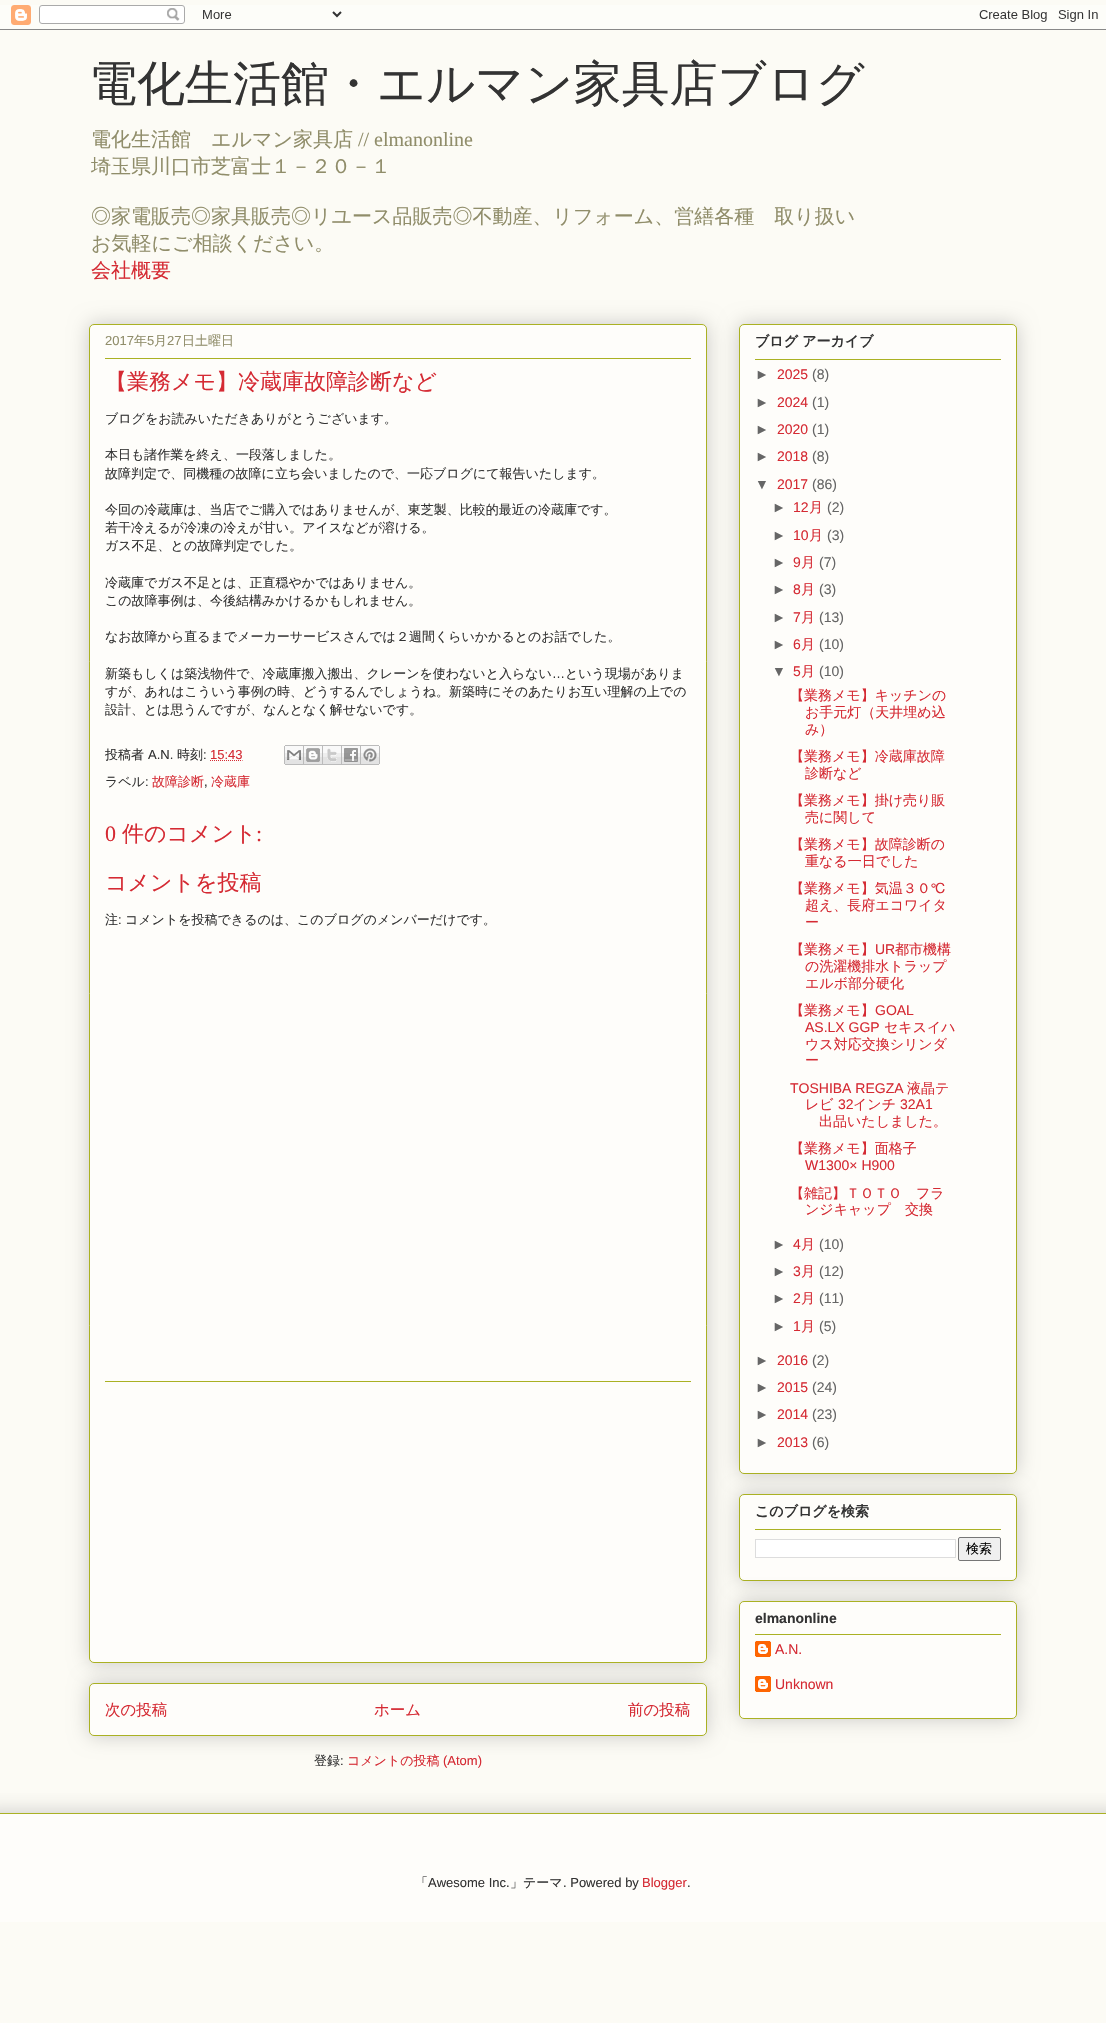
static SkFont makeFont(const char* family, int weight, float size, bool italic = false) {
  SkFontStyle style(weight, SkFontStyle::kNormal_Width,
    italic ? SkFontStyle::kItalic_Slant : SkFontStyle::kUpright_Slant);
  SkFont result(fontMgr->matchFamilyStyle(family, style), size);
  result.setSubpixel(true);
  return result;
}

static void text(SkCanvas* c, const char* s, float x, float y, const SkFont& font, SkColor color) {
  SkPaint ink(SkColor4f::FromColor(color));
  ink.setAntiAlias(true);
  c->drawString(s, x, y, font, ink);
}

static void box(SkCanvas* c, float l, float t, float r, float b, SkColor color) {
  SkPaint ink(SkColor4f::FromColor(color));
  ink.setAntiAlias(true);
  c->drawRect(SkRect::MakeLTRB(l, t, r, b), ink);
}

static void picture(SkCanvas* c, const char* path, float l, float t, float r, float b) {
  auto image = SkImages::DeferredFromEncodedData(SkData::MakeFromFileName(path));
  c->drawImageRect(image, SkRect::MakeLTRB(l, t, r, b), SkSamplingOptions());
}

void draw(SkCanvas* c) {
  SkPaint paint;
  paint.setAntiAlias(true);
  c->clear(0xfffcfbf5);
  picture(c, "img_01.png", 0, 5, 1106, 30);
  SkFont face1 = makeFont("WenQuanYi Zen Hei", 500, 48);
  text(c, "電化生活館・エルマン家具店ブログ", 89, 100, face1, 0xff333333);
  SkFont face2 = makeFont("WenQuanYi Zen Hei", 500, 20);
  text(c, "電化生活館　エルマン家具店", 91, 146, face2, 0xff908d6a);
  SkFont face3 = makeFont("Liberation Serif", 400, 20);
  text(c, "// elmanonline", 358, 146, face3, 0xff908d6a);
  text(c, "埼玉県川口市芝富士１－２０－１", 91, 173, face2, 0xff908d6a);
  text(c, "◎家電販売◎家具販売◎リユース品販売◎不動産、リフォーム、営繕各種　取り扱い", 91, 223, face2, 0xff908d6a);
  text(c, "お気軽にご相談ください。", 91, 250, face2, 0xff908d6a);
  text(c, "会社概要", 91, 277, face2, 0xffd52a33);
  paint.setColor(0x33000000);
  paint.setMaskFilter(SkMaskFilter::MakeBlur(kNormal_SkBlurStyle, 10));
  c->drawRoundRect(SkRect::MakeLTRB(89, 1683, 707, 1736), 5, 5, paint);
  paint.setMaskFilter(nullptr);
  paint.setColor(0xfffefdfa);
  c->drawRoundRect(SkRect::MakeLTRB(89.5f, 1683.5f, 706.5f, 1735.5f), 4.5f, 4.5f, paint);
  paint.setStyle(SkPaint::kStroke_Style);
  paint.setStrokeWidth(1);
  paint.setColor(0xffaab123);
  c->drawRoundRect(SkRect::MakeLTRB(89.5f, 1683.5f, 706.5f, 1735.5f), 4.5f, 4.5f, paint);
  paint.setStyle(SkPaint::kFill_Style);
  paint.setColor(0x33000000);
  paint.setMaskFilter(SkMaskFilter::MakeBlur(kNormal_SkBlurStyle, 10));
  c->drawRoundRect(SkRect::MakeLTRB(89, 324, 707, 1663), 5, 5, paint);
  paint.setMaskFilter(nullptr);
  paint.setColor(0xfffefdfa);
  c->drawRoundRect(SkRect::MakeLTRB(89.5f, 324.5f, 706.5f, 1662.5f), 4.5f, 4.5f, paint);
  paint.setStyle(SkPaint::kStroke_Style);
  paint.setColor(0xffaab123);
  c->drawRoundRect(SkRect::MakeLTRB(89.5f, 324.5f, 706.5f, 1662.5f), 4.5f, 4.5f, paint);
  SkFont face4 = makeFont("Liberation Sans", 400, 13);
  text(c, "2017", 105, 345, face4, 0xff908d6a);
  SkFont face5 = makeFont("WenQuanYi Zen Hei", 500, 13);
  text(c, "年", 134, 345, face5, 0xff908d6a);
  text(c, "5", 147, 345, face4, 0xff908d6a);
  text(c, "月", 154, 345, face5, 0xff908d6a);
  text(c, "27", 167, 345, face4, 0xff908d6a);
  text(c, "日土曜日", 182, 345, face5, 0xff908d6a);
  box(c, 105, 358, 691, 359, 0xffaab123);
  SkFont face6 = makeFont("WenQuanYi Zen Hei", 500, 22);
  text(c, "【業務メモ】冷蔵庫故障診断など", 105, 389, face6, 0xffd52a33);
  text(c, "ブログをお読みいただきありがとうございます。", 105, 423, face5, 0xff333333);
  text(c, "本日も諸作業を終え、一段落しました。", 105, 459, face5, 0xff333333);
  text(c, "故障判定で、同機種の故障に立ち会いましたので、一応ブログにて報告いたします。", 105, 478, face5, 0xff333333);
  text(c, "今回の冷蔵庫は、当店でご購入ではありませんが、東芝製、比較的最近の冷蔵庫です。", 105, 514, face5, 0xff333333);
  text(c, "若干冷えるが冷凍の冷えが甘い。アイスなどが溶ける。", 105, 532, face5, 0xff333333);
  text(c, "ガス不足、との故障判定でした。", 105, 550, face5, 0xff333333);
  text(c, "冷蔵庫でガス不足とは、正直穏やかではありません。", 105, 587, face5, 0xff333333);
  text(c, "この故障事例は、今後結構みかけるかもしれません。", 105, 605, face5, 0xff333333);
  text(c, "なお故障から直るまでメーカーサービスさんでは２週間くらいかかるとのお話でした。", 105, 641, face5, 0xff333333);
  text(c, "新築もしくは築浅物件で、冷蔵庫搬入搬出、クレーンを使わないと入らない", 105, 678, face5, 0xff333333);
  text(c, "…", 552, 678, face4, 0xff333333);
  text(c, "という現場がありま", 565, 678, face5, 0xff333333);
  text(c, "すが、あれはこういう事例の時、どうするんでしょうね。新築時にそのあたりお互い理解の上での", 105, 696, face5, 0xff333333);
  text(c, "設計、とは思うんですが、なんとなく解せないです。", 105, 714, face5, 0xff333333);
  text(c, "投稿者", 105, 759, face5, 0xff333333);
  text(c, "A.N.", 148, 759, face4, 0xff333333);
  text(c, "時刻", 177, 759, face5, 0xff333333);
  text(c, ":", 203, 759, face4, 0xff333333);
  text(c, "15:43", 210, 759, face4, 0xffd52a33);
  paint.setColor(0xffd52a33);
  paint.setPathEffect(SkDashPathEffect::Make({{1, 1}}, 0));
  c->drawPath(SkPathBuilder().moveTo(210, 760.5f).lineTo(242.5f, 760.5f).detach(), paint);
  paint.setPathEffect(nullptr);
  picture(c, "img_02.png", 284, 745, 304, 765);
  picture(c, "img_03.png", 304, 745, 323, 765);
  picture(c, "img_04.png", 323, 745, 342, 765);
  picture(c, "img_05.png", 342, 745, 361, 765);
  picture(c, "img_06.png", 361, 745, 380, 765);
  text(c, "ラベル", 105, 786, face5, 0xff333333);
  text(c, ":", 145, 786, face4, 0xff333333);
  text(c, "故障診断", 152, 786, face5, 0xffd52a33);
  text(c, ",", 204, 786, face4, 0xff333333);
  text(c, "冷蔵庫", 211, 786, face5, 0xffd52a33);
  SkFont face7 = makeFont("Liberation Serif", 400, 22);
  text(c, "0", 105, 841, face7, 0xffd52a33);
  text(c, "件のコメント", 122, 841, face6, 0xffd52a33);
  text(c, ":", 256, 841, face7, 0xffd52a33);
  text(c, "コメントを投稿", 105, 890, face6, 0xffd52a33);
  text(c, "注", 105, 924, face5, 0xff333333);
  text(c, ":", 118, 924, face4, 0xff333333);
  text(c, "コメントを投稿できるのは、このブログのメンバーだけです。", 125, 924, face5, 0xff333333);
  box(c, 105, 1381, 691, 1382, 0xffaab123);
  SkFont face8 = makeFont("WenQuanYi Zen Hei", 500, 15.5f);
  text(c, "次の投稿", 105, 1715, face8, 0xffd52a33);
  text(c, "ホーム", 374, 1715, face8, 0xffd52a33);
  text(c, "前の投稿", 628, 1715, face8, 0xffd52a33);
  text(c, "登録", 314, 1765, face5, 0xff333333);
  text(c, ":", 340, 1765, face4, 0xff333333);
  text(c, "コメントの投稿", 347, 1765, face5, 0xffd52a33);
  text(c, "(Atom)", 443, 1765, face4, 0xffd52a33);
  paint.setStyle(SkPaint::kFill_Style);
  paint.setColor(0x33000000);
  paint.setMaskFilter(SkMaskFilter::MakeBlur(kNormal_SkBlurStyle, 10));
  c->drawRoundRect(SkRect::MakeLTRB(739, 324, 1017, 1474), 5, 5, paint);
  paint.setMaskFilter(nullptr);
  paint.setColor(0xfffefdfa);
  c->drawRoundRect(SkRect::MakeLTRB(739.5f, 324.5f, 1016.5f, 1473.5f), 4.5f, 4.5f, paint);
  paint.setStyle(SkPaint::kStroke_Style);
  paint.setColor(0xffaab123);
  c->drawRoundRect(SkRect::MakeLTRB(739.5f, 324.5f, 1016.5f, 1473.5f), 4.5f, 4.5f, paint);
  SkFont face9 = makeFont("WenQuanYi Zen Hei", 700, 14);
  text(c, "ブログ アーカイブ", 755, 346, face9, 0xff333333);
  box(c, 755, 359, 1001, 360, 0xffaab123);
  SkFont face10 = makeFont("Liberation Sans", 400, 14);
  text(c, "►", 755, 379, face10, 0xff666666);
  text(c, "2025", 777, 379, face10, 0xffd52a33);
  text(c, "(8)", 812, 379, face10, 0xff666666);
  text(c, "►", 755, 407, face10, 0xff666666);
  text(c, "2024", 777, 407, face10, 0xffd52a33);
  text(c, "(1)", 812, 407, face10, 0xff666666);
  text(c, "►", 755, 434, face10, 0xff666666);
  text(c, "2020", 777, 434, face10, 0xffd52a33);
  text(c, "(1)", 812, 434, face10, 0xff666666);
  text(c, "►", 755, 461, face10, 0xff666666);
  text(c, "2018", 777, 461, face10, 0xffd52a33);
  text(c, "(8)", 812, 461, face10, 0xff666666);
  text(c, "▼", 755, 489, face10, 0xff666666);
  text(c, "2017", 777, 489, face10, 0xffd52a33);
  text(c, "(86)", 812, 489, face10, 0xff666666);
  text(c, "►", 772, 512, face10, 0xff666666);
  text(c, "12", 793, 512, face10, 0xffd52a33);
  SkFont face11 = makeFont("WenQuanYi Zen Hei", 500, 14);
  text(c, "月", 809, 512, face11, 0xffd52a33);
  text(c, "(2)", 827, 512, face10, 0xff666666);
  text(c, "►", 772, 540, face10, 0xff666666);
  text(c, "10", 793, 540, face10, 0xffd52a33);
  text(c, "月", 809, 540, face11, 0xffd52a33);
  text(c, "(3)", 827, 540, face10, 0xff666666);
  text(c, "►", 772, 567, face10, 0xff666666);
  text(c, "9", 793, 567, face10, 0xffd52a33);
  text(c, "月", 801, 567, face11, 0xffd52a33);
  text(c, "(7)", 819, 567, face10, 0xff666666);
  text(c, "►", 772, 594, face10, 0xff666666);
  text(c, "8", 793, 594, face10, 0xffd52a33);
  text(c, "月", 801, 594, face11, 0xffd52a33);
  text(c, "(3)", 819, 594, face10, 0xff666666);
  text(c, "►", 772, 622, face10, 0xff666666);
  text(c, "7", 793, 622, face10, 0xffd52a33);
  text(c, "月", 801, 622, face11, 0xffd52a33);
  text(c, "(13)", 819, 622, face10, 0xff666666);
  text(c, "►", 772, 649, face10, 0xff666666);
  text(c, "6", 793, 649, face10, 0xffd52a33);
  text(c, "月", 801, 649, face11, 0xffd52a33);
  text(c, "(10)", 819, 649, face10, 0xff666666);
  text(c, "▼", 772, 676, face10, 0xff666666);
  text(c, "5", 793, 676, face10, 0xffd52a33);
  text(c, "月", 801, 676, face11, 0xffd52a33);
  text(c, "(10)", 819, 676, face10, 0xff666666);
  text(c, "【業務メモ】キッチンの", 790, 700, face11, 0xffd52a33);
  text(c, "お手元灯（天井埋め込", 805, 717, face11, 0xffd52a33);
  text(c, "み）", 805, 734, face11, 0xffd52a33);
  text(c, "【業務メモ】冷蔵庫故障", 790, 761, face11, 0xffd52a33);
  text(c, "診断など", 805, 778, face11, 0xffd52a33);
  text(c, "【業務メモ】掛け売り販", 790, 805, face11, 0xffd52a33);
  text(c, "売に関して", 805, 822, face11, 0xffd52a33);
  text(c, "【業務メモ】故障診断の", 790, 849, face11, 0xffd52a33);
  text(c, "重なる一日でした", 805, 866, face11, 0xffd52a33);
  text(c, "【業務メモ】気温３０", 790, 893, face11, 0xffd52a33);
  SkFont face12 = makeFont("FreeSans", 400, 14);
  text(c, "℃", 931, 893, face12, 0xffd52a33);
  text(c, "超え、長府エコワイタ", 805, 910, face11, 0xffd52a33);
  text(c, "ー", 805, 927, face11, 0xffd52a33);
  text(c, "【業務メモ】", 790, 954, face11, 0xffd52a33);
  text(c, "UR", 875, 954, face10, 0xffd52a33);
  text(c, "都市機構", 895, 954, face11, 0xffd52a33);
  text(c, "の洗濯機排水トラップ", 805, 971, face11, 0xffd52a33);
  text(c, "エルボ部分硬化", 805, 988, face11, 0xffd52a33);
  text(c, "【業務メモ】", 790, 1015, face11, 0xffd52a33);
  text(c, "GOAL", 875, 1015, face10, 0xffd52a33);
  text(c, "AS.LX GGP", 805, 1032, face10, 0xffd52a33);
  text(c, "セキスイハ", 884, 1032, face11, 0xffd52a33);
  text(c, "ウス対応交換シリンダ", 805, 1049, face11, 0xffd52a33);
  text(c, "ー", 805, 1065, face11, 0xffd52a33);
  text(c, "TOSHIBA REGZA", 790, 1093, face10, 0xffd52a33);
  text(c, "液晶テ", 907, 1093, face11, 0xffd52a33);
  text(c, "レビ", 805, 1109, face11, 0xffd52a33);
  text(c, "32", 838, 1109, face10, 0xffd52a33);
  text(c, "インチ", 853, 1109, face11, 0xffd52a33);
  text(c, "32A1", 900, 1109, face10, 0xffd52a33);
  text(c, "出品いたしました。", 819, 1126, face11, 0xffd52a33);
  text(c, "【業務メモ】面格子", 790, 1153, face11, 0xffd52a33);
  text(c, "W1300× H900", 805, 1170, face10, 0xffd52a33);
  text(c, "【雑記】ＴＯＴＯ　フラ", 790, 1198, face11, 0xffd52a33);
  text(c, "ンジキャップ　交換", 805, 1214, face11, 0xffd52a33);
  text(c, "►", 772, 1249, face10, 0xff666666);
  text(c, "4", 793, 1249, face10, 0xffd52a33);
  text(c, "月", 801, 1249, face11, 0xffd52a33);
  text(c, "(10)", 819, 1249, face10, 0xff666666);
  text(c, "►", 772, 1276, face10, 0xff666666);
  text(c, "3", 793, 1276, face10, 0xffd52a33);
  text(c, "月", 801, 1276, face11, 0xffd52a33);
  text(c, "(12)", 819, 1276, face10, 0xff666666);
  text(c, "►", 772, 1303, face10, 0xff666666);
  text(c, "2", 793, 1303, face10, 0xffd52a33);
  text(c, "月", 801, 1303, face11, 0xffd52a33);
  text(c, "(11)", 819, 1303, face10, 0xff666666);
  text(c, "►", 772, 1331, face10, 0xff666666);
  text(c, "1", 793, 1331, face10, 0xffd52a33);
  text(c, "月", 801, 1331, face11, 0xffd52a33);
  text(c, "(5)", 819, 1331, face10, 0xff666666);
  text(c, "►", 755, 1365, face10, 0xff666666);
  text(c, "2016", 777, 1365, face10, 0xffd52a33);
  text(c, "(2)", 812, 1365, face10, 0xff666666);
  text(c, "►", 755, 1392, face10, 0xff666666);
  text(c, "2015", 777, 1392, face10, 0xffd52a33);
  text(c, "(24)", 812, 1392, face10, 0xff666666);
  text(c, "►", 755, 1419, face10, 0xff666666);
  text(c, "2014", 777, 1419, face10, 0xffd52a33);
  text(c, "(23)", 812, 1419, face10, 0xff666666);
  text(c, "►", 755, 1447, face10, 0xff666666);
  text(c, "2013", 777, 1447, face10, 0xffd52a33);
  text(c, "(6)", 812, 1447, face10, 0xff666666);
  paint.setStyle(SkPaint::kFill_Style);
  paint.setColor(0x33000000);
  paint.setMaskFilter(SkMaskFilter::MakeBlur(kNormal_SkBlurStyle, 10));
  c->drawRoundRect(SkRect::MakeLTRB(739, 1494, 1017, 1581), 5, 5, paint);
  paint.setMaskFilter(nullptr);
  paint.setColor(0xfffefdfa);
  c->drawRoundRect(SkRect::MakeLTRB(739.5f, 1494.5f, 1016.5f, 1580.5f), 4.5f, 4.5f, paint);
  paint.setStyle(SkPaint::kStroke_Style);
  paint.setColor(0xffaab123);
  c->drawRoundRect(SkRect::MakeLTRB(739.5f, 1494.5f, 1016.5f, 1580.5f), 4.5f, 4.5f, paint);
  text(c, "このブログを検索", 755, 1516, face9, 0xff333333);
  box(c, 755, 1529, 1001, 1530, 0xffaab123);
  paint.setStyle(SkPaint::kFill_Style);
  paint.setColor(0xffffffff);
  c->drawRect(SkRect::MakeLTRB(755.5f, 1539.5f, 955.5f, 1557.5f), paint);
  paint.setStyle(SkPaint::kStroke_Style);
  paint.setColor(0xffdddddd);
  c->drawRect(SkRect::MakeLTRB(755.5f, 1539.5f, 955.5f, 1557.5f), paint);
  paint.setStyle(SkPaint::kFill_Style);
  paint.setColor(0xffefefef);
  c->drawRoundRect(SkRect::MakeLTRB(958.5f, 1537.5f, 1000.5f, 1560.5f), 1.5f, 1.5f, paint);
  paint.setStyle(SkPaint::kStroke_Style);
  paint.setColor(0xff767676);
  c->drawRoundRect(SkRect::MakeLTRB(958.5f, 1537.5f, 1000.5f, 1560.5f), 1.5f, 1.5f, paint);
  text(c, "検索", 966, 1553, face5, 0xff000000);
  paint.setStyle(SkPaint::kFill_Style);
  paint.setColor(0x33000000);
  paint.setMaskFilter(SkMaskFilter::MakeBlur(kNormal_SkBlurStyle, 10));
  c->drawRoundRect(SkRect::MakeLTRB(739, 1601, 1017, 1719), 5, 5, paint);
  paint.setMaskFilter(nullptr);
  paint.setColor(0xfffefdfa);
  c->drawRoundRect(SkRect::MakeLTRB(739.5f, 1601.5f, 1016.5f, 1718.5f), 4.5f, 4.5f, paint);
  paint.setStyle(SkPaint::kStroke_Style);
  paint.setColor(0xffaab123);
  c->drawRoundRect(SkRect::MakeLTRB(739.5f, 1601.5f, 1016.5f, 1718.5f), 4.5f, 4.5f, paint);
  SkFont face13 = makeFont("Liberation Sans", 700, 14);
  text(c, "elmanonline", 755, 1623, face13, 0xff333333);
  box(c, 755, 1634, 1001, 1635, 0xffaab123);
  picture(c, "img_07.png", 755, 1641, 771, 1657);
  text(c, "A.N.", 775, 1654, face10, 0xffd52a33);
  picture(c, "img_07.png", 755, 1676, 771, 1692);
  text(c, "Unknown", 775, 1689, face10, 0xffd52a33);
  c->save();
  c->clipRect(SkRect::MakeLTRB(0, 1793, 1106, 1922));
  paint.setStyle(SkPaint::kFill_Style);
  paint.setColor(0x33000000);
  paint.setMaskFilter(SkMaskFilter::MakeBlur(kNormal_SkBlurStyle, 10));
  c->drawRect(SkRect::MakeLTRB(-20, 1813, 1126, 1922), paint);
  paint.setMaskFilter(nullptr);
  c->restore();
  box(c, 0, 1814, 1106, 1922, 0xfffefdfa);
  box(c, 0, 1813, 1106, 1814, 0xffaab123);
  text(c, "「", 415, 1887, face5, 0xff333333);
  text(c, "Awesome Inc.", 428, 1887, face4, 0xff333333);
  text(c, "」テーマ", 510, 1887, face5, 0xff333333);
  text(c, ". Powered by", 563, 1887, face4, 0xff333333);
  text(c, "Blogger", 642, 1887, face4, 0xffd52a33);
  text(c, ".", 687, 1887, face4, 0xff333333);
}
